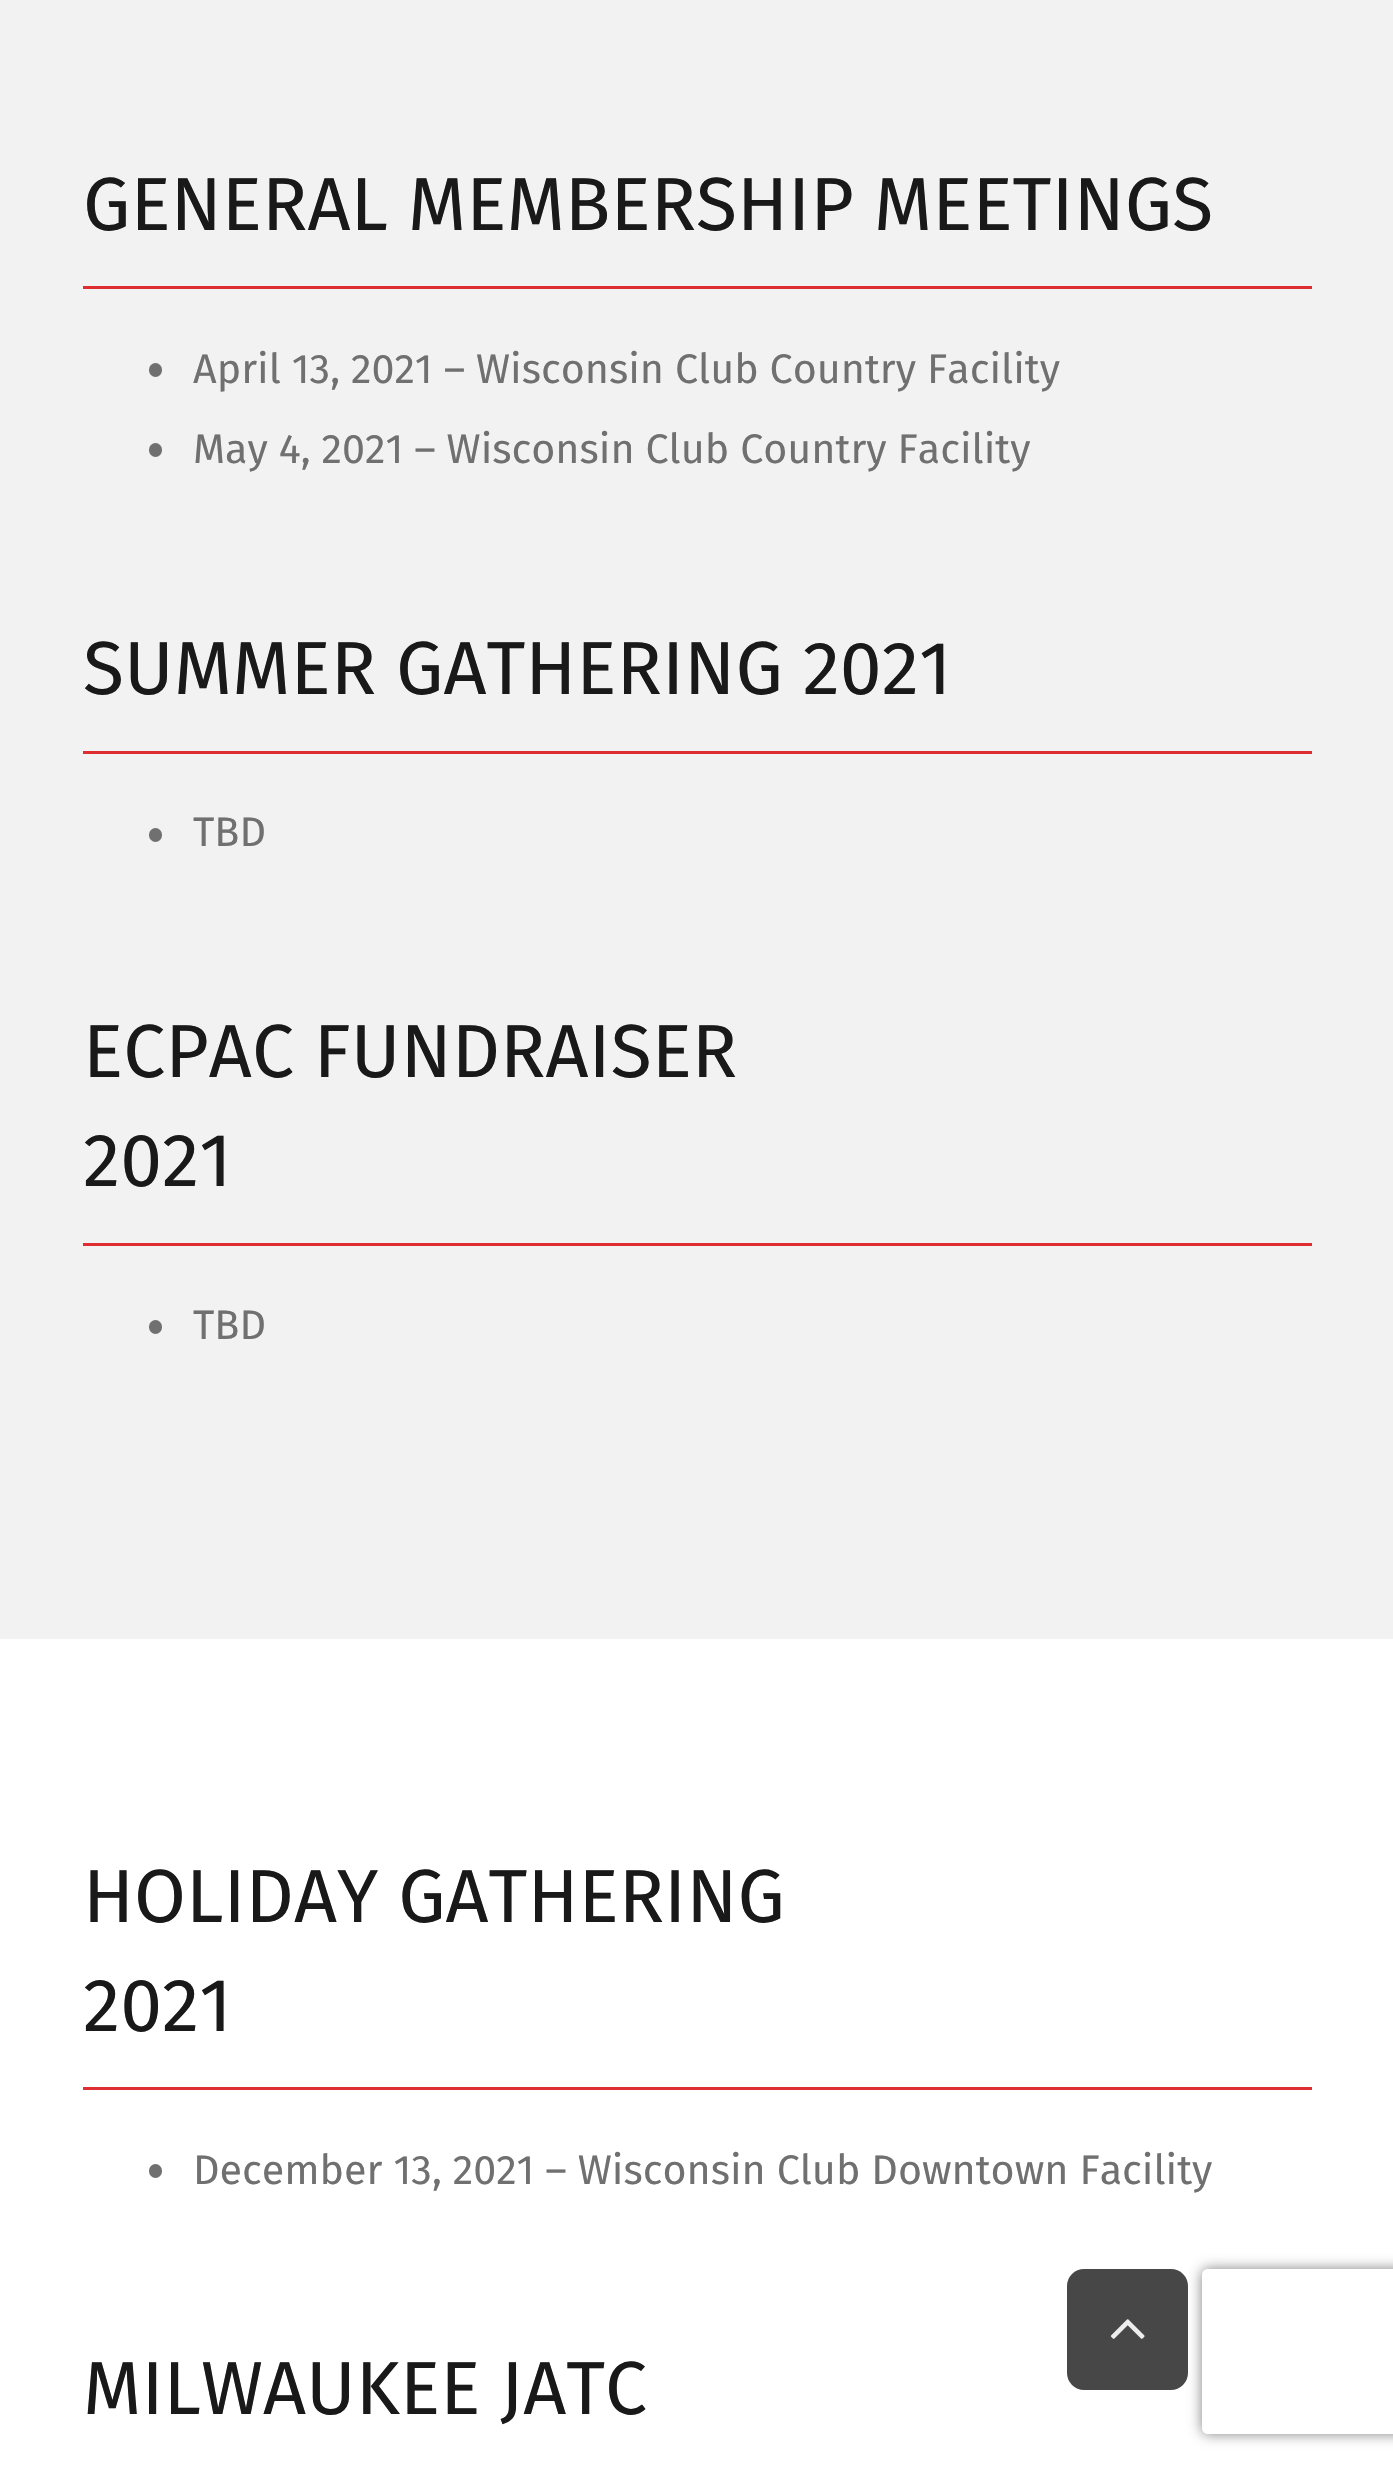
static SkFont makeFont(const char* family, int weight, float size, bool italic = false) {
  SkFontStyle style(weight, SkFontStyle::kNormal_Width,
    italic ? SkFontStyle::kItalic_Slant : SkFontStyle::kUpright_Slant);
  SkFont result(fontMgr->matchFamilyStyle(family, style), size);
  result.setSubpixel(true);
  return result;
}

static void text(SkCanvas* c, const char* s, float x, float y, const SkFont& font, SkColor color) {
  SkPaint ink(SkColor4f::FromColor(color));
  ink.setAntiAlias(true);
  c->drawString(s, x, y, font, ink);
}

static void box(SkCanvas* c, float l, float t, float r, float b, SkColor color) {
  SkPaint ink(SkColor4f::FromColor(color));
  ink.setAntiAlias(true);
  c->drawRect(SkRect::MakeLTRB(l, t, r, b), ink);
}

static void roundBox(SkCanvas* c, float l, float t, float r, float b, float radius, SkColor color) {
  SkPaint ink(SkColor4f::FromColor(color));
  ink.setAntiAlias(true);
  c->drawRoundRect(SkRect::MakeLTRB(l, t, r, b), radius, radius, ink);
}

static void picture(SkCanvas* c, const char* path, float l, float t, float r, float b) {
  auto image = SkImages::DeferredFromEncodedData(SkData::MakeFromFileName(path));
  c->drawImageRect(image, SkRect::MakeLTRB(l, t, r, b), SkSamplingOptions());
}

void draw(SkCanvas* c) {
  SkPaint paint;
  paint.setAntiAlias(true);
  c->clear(0xffffffff);
  box(c, 0, 0, 1393, 1639, 0xfff2f2f2);
  box(c, 83, 286, 1312, 289, 0xffdf2e32);
  SkFont face1 = makeFont("Fira Sans", 400, 75.1f);
  text(c, "GENERAL MEMBERSHIP MEETINGS", 83, 230, face1, 0xff191919);
  roundBox(c, 149, 363, 162, 377, 6.5f, 0xff707070);
  SkFont face2 = makeFont("Fira Sans", 400, 41.25f);
  text(c, "April 13, 2021 – Wisconsin Club Country Facility", 193, 383, face2, 0xff707070);
  roundBox(c, 149, 443, 162, 457, 6.5f, 0xff707070);
  text(c, "May 4, 2021 – Wisconsin Club Country Facility", 193, 463, face2, 0xff707070);
  box(c, 83, 751, 1312, 754, 0xffdf2e32);
  text(c, "SUMMER GATHERING 2021", 83, 694, face1, 0xff191919);
  roundBox(c, 149, 828, 162, 842, 6.5f, 0xff707070);
  text(c, "TBD", 193, 846, face2, 0xff707070);
  box(c, 83, 1243, 1312, 1246, 0xffdf2e32);
  text(c, "ECPAC FUNDRAISER", 83, 1077, face1, 0xff191919);
  text(c, "2021", 83, 1186, face1, 0xff191919);
  roundBox(c, 149, 1320, 162, 1334, 6.5f, 0xff707070);
  text(c, "TBD", 193, 1339, face2, 0xff707070);
  box(c, 83, 2087, 1312, 2090, 0xffdf2e32);
  text(c, "HOLIDAY GATHERING", 83, 1922, face1, 0xff191919);
  text(c, "2021", 83, 2031, face1, 0xff191919);
  roundBox(c, 149, 2164, 162, 2178, 6.5f, 0xff707070);
  text(c, "December 13, 2021 – Wisconsin Club Downtown Facility", 193, 2184, face2, 0xff707070);
  text(c, "MILWAUKEE JATC", 83, 2414, face1, 0xff191919);
  c->save();
  c->clipPath(SkPathBuilder(SkPathFillType::kEvenOdd).moveTo(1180, 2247).lineTo(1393, 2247).lineTo(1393, 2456).lineTo(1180, 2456).close().moveTo(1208, 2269).lineTo(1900, 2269).cubicTo(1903.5f, 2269, 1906, 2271.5f, 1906, 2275).lineTo(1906, 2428).cubicTo(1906, 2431.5f, 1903.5f, 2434, 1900, 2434).lineTo(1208, 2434).cubicTo(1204.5f, 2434, 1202, 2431.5f, 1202, 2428).lineTo(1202, 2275).cubicTo(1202, 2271.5f, 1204.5f, 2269, 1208, 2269).close().detach(), true);
  paint.setColor(0xff808080);
  paint.setMaskFilter(SkMaskFilter::MakeBlur(kNormal_SkBlurStyle, 7));
  c->drawRoundRect(SkRect::MakeLTRB(1202, 2269, 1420, 2434), 6, 6, paint);
  paint.setMaskFilter(nullptr);
  c->restore();
  roundBox(c, 1067, 2269, 1188, 2390, 17, 0xff474747);
  picture(c, "img_01.png", 1110, 2319, 1145, 2339);
}
